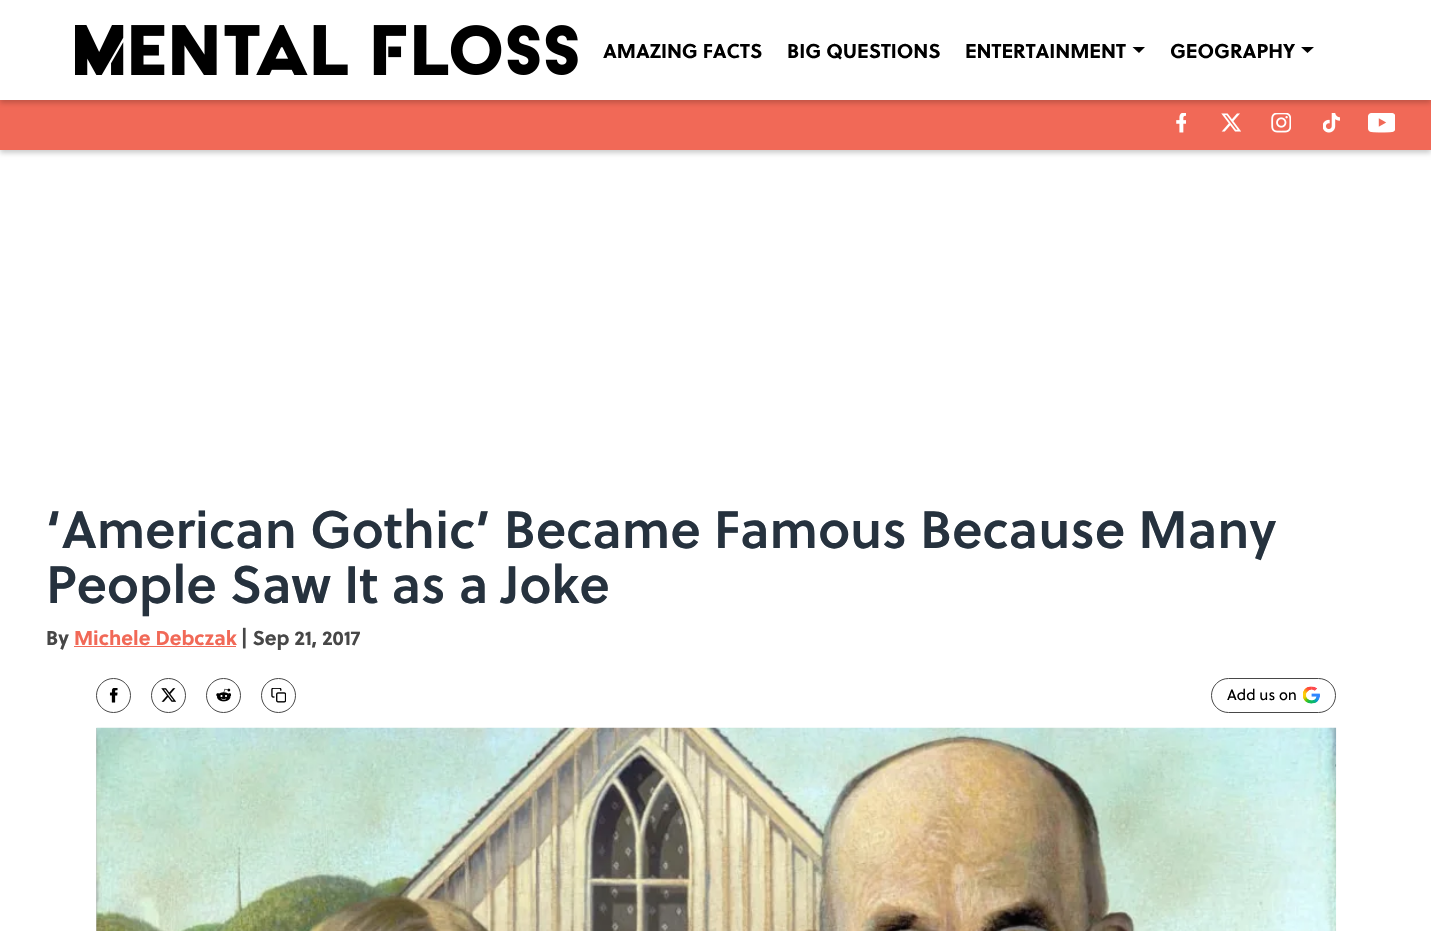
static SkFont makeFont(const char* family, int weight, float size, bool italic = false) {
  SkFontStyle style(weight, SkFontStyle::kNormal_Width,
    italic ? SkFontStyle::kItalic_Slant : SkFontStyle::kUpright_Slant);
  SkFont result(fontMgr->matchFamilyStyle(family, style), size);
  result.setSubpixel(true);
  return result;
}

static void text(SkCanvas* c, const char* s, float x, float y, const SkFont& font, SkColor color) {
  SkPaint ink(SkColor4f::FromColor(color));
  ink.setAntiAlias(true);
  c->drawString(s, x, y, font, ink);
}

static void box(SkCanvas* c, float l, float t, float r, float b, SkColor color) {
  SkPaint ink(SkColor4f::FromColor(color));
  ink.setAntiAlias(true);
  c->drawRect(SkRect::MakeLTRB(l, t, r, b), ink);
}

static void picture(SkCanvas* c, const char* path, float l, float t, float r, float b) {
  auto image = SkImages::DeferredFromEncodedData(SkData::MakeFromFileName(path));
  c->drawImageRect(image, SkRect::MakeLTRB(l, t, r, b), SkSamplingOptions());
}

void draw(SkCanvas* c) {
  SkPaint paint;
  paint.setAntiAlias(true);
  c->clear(0xffffffff);
  paint.setColor(0x33000000);
  paint.setMaskFilter(SkMaskFilter::MakeBlur(kNormal_SkBlurStyle, 2.5f));
  c->drawRect(SkRect::MakeLTRB(0, 103, 1431, 153), paint);
  paint.setMaskFilter(nullptr);
  box(c, 0, 100, 1431, 150, 0xfff16957);
  paint.setMaskFilter(SkMaskFilter::MakeBlur(kNormal_SkBlurStyle, 2.5f));
  c->drawRect(SkRect::MakeLTRB(0, 3, 1431, 103), paint);
  paint.setMaskFilter(nullptr);
  box(c, 0, 0, 1431, 100, 0xffffffff);
  picture(c, "img_01.png", 75, 25, 578, 75);
  SkFont face1 = makeFont("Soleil", 700, 20);
  text(c, "AMAZING FACTS", 603, 58, face1, 0xff000000);
  text(c, "BIG QUESTIONS", 787, 58, face1, 0xff000000);
  text(c, "ENTERTAINMENT", 965, 58, face1, 0xff000000);
  paint.setColor(0xff000000);
  c->drawPath(SkPathBuilder(SkPathFillType::kEvenOdd).moveTo(1132.5f, 47).lineTo(1139, 53).lineTo(1145, 47).close().detach(), paint);
  text(c, "GEOGRAPHY", 1170, 58, face1, 0xff000000);
  c->drawPath(SkPathBuilder(SkPathFillType::kEvenOdd).moveTo(1301, 47).lineTo(1307.5f, 53).lineTo(1314, 47).close().detach(), paint);
  picture(c, "img_02.png", 1176, 113, 1186, 133);
  picture(c, "img_03.png", 1221, 113, 1241, 132);
  picture(c, "img_04.png", 1271, 113, 1291, 133);
  picture(c, "img_05.png", 1323, 113, 1340, 133);
  picture(c, "img_06.png", 1368, 113, 1395, 133);
  SkFont face2 = makeFont("Soleil", 600, 52.5f);
  text(c, "‘American Gothic’ Became Famous Because Many", 46, 548, face2, 0xff26323e);
  text(c, "People Saw It as a Joke", 46, 603, face2, 0xff26323e);
  text(c, "By", 46, 645, face1, 0xff474747);
  text(c, "Michele Debczak", 74, 645, face1, 0xfff16957);
  box(c, 74, 646, 236, 647, 0xfff16957);
  text(c, "| Sep 21, 2017", 241, 645, face1, 0xff474747);
  paint.setStyle(SkPaint::kStroke_Style);
  paint.setStrokeWidth(1);
  paint.setColor(0xff474747);
  c->drawCircle(113.5f, 695.5f, 17, paint);
  picture(c, "img_07.png", 109, 688, 118, 703);
  c->drawCircle(168.5f, 695.5f, 17, paint);
  picture(c, "img_08.png", 161, 688, 176, 702);
  c->drawCircle(223.5f, 695.5f, 17, paint);
  picture(c, "img_09.png", 216, 688, 231, 702);
  c->drawCircle(278.5f, 695.5f, 17, paint);
  picture(c, "img_10.png", 271, 688, 286, 703);
  c->drawRoundRect(SkRect::MakeLTRB(1211.5f, 678.5f, 1335.5f, 712.5f), 17, 17, paint);
  SkFont face3 = makeFont("Soleil", 400, 15);
  text(c, "Add us on", 1227, 700, face3, 0xff000000);
  picture(c, "img_11.png", 1303, 686, 1320, 704);
  box(c, 96, 728, 97, 931, 0xffc4c4c4);
  picture(c, "img_12.png", 96, 727, 1337, 931);
}
